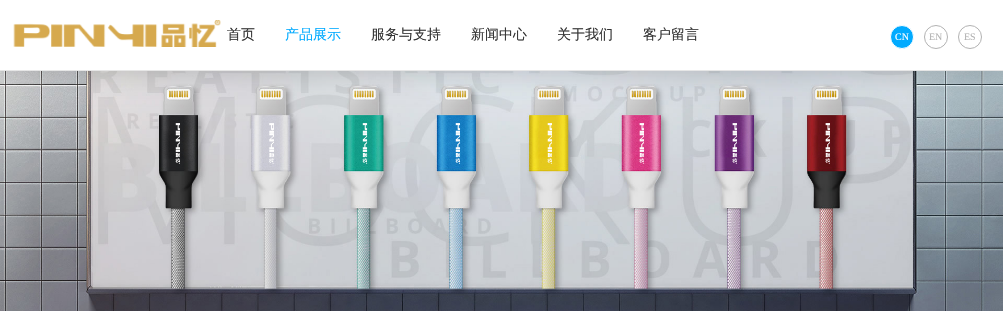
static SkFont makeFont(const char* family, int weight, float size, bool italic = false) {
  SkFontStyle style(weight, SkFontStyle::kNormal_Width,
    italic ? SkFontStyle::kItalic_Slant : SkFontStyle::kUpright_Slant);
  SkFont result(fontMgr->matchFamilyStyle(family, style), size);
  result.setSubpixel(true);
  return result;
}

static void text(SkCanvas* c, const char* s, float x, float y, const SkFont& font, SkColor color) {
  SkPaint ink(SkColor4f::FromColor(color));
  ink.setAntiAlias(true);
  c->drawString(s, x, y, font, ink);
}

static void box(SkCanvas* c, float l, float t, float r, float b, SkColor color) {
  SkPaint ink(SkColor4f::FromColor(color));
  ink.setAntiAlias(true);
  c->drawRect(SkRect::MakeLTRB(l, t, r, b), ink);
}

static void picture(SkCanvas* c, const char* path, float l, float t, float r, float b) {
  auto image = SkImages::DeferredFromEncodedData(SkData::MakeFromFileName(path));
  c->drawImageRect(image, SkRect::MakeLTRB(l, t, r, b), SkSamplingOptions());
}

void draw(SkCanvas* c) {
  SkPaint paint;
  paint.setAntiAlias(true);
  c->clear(0xffffffff);
  picture(c, "img_02.png", 0, 71, 1003, 311);
  paint.setColor(0x33000000);
  paint.setMaskFilter(SkMaskFilter::MakeBlur(kNormal_SkBlurStyle, 15));
  c->drawRect(SkRect::MakeLTRB(0, 0, 1003, 71), paint);
  paint.setMaskFilter(nullptr);
  box(c, 0, 0, 1003, 70, 0xffffffff);
  box(c, 0, 70, 1003, 71, 0xffe6e6e6);
  picture(c, "img_01.png", 13, 20, 221, 47);
  SkFont face1 = makeFont("WenQuanYi Zen Hei", 500, 14);
  text(c, "首页", 227, 39, face1, 0xff333333);
  text(c, "产品展示", 285, 39, face1, 0xff00aaff);
  text(c, "服务与支持", 371, 39, face1, 0xff333333);
  text(c, "新闻中心", 471, 39, face1, 0xff333333);
  text(c, "关于我们", 557, 39, face1, 0xff333333);
  text(c, "客户留言", 643, 39, face1, 0xff333333);
  paint.setColor(0xff00aaff);
  c->drawCircle(902, 37, 11.5f, paint);
  paint.setStyle(SkPaint::kStroke_Style);
  paint.setStrokeWidth(1);
  paint.setColor(0xffffffff);
  c->drawCircle(902, 37, 11.5f, paint);
  SkFont face2 = makeFont("Liberation Serif", 400, 10);
  text(c, "CN", 895, 40, face2, 0xffffffff);
  paint.setColor(0xffb2b2b2);
  c->drawCircle(936, 37, 11.5f, paint);
  text(c, "EN", 929, 40, face2, 0xffb2b2b2);
  c->drawCircle(970, 37, 11.5f, paint);
  text(c, "ES", 964, 40, face2, 0xffb2b2b2);
}
